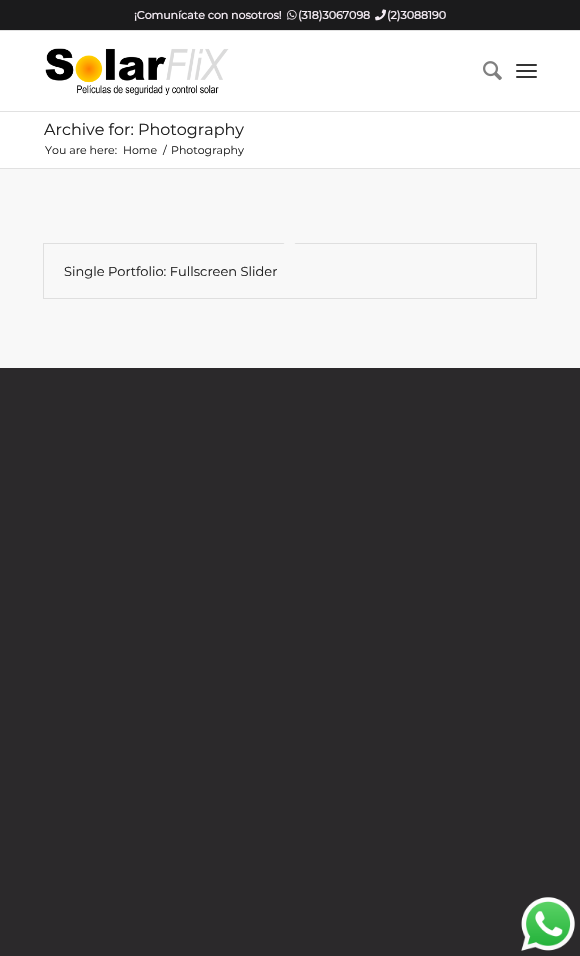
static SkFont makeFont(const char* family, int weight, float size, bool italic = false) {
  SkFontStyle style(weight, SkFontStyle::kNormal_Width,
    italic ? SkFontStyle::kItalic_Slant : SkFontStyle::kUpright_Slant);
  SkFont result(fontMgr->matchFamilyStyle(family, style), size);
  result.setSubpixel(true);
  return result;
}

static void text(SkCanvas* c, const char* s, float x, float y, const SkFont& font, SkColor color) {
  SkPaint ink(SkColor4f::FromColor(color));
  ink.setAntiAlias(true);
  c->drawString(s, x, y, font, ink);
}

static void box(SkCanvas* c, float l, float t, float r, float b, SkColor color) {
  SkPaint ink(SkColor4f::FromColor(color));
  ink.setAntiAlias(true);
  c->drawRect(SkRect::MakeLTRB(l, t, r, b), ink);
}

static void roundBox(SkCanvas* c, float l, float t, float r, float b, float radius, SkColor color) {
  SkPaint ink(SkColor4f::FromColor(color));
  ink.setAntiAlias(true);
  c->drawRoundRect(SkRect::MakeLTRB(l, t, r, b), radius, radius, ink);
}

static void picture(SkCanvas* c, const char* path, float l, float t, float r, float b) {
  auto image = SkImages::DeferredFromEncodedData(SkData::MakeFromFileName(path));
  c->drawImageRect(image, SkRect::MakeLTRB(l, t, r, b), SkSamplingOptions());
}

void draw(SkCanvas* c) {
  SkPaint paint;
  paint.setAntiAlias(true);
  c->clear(0xff2b292b);
  box(c, 0, 0, 580, 30, 0xff1b1b1c);
  box(c, 0, 30, 580, 31, 0xffe1e1e1);
  SkFont face1 = makeFont("Montserrat", 700, 11);
  text(c, "¡Comunícate con nosotros!", 134, 19, face1, 0xfff5edf5);
  picture(c, "img_01.png", 287, 10, 297, 20);
  text(c, "(318)3067098", 298, 19, face1, 0xfff5edf5);
  picture(c, "img_02.png", 375, 9, 386, 21);
  text(c, "(2)3088190", 387, 19, face1, 0xfff5edf5);
  box(c, 0, 31, 580, 111, 0xffffffff);
  box(c, 0, 111, 580, 112, 0xffe1e1e1);
  picture(c, "img_03.png", 45, 48, 229, 95);
  picture(c, "img_04.png", 483, 61, 502, 81);
  roundBox(c, 516, 70, 537, 72, 1, 0xff333333);
  roundBox(c, 516, 64, 537, 66, 1, 0xff333333);
  roundBox(c, 516, 76, 537, 78, 1, 0xff333333);
  box(c, 0, 112, 580, 168, 0xffffffff);
  SkFont face2 = makeFont("Montserrat", 100, 16);
  text(c, "Archive for: Photography", 44, 135, face2, 0xff212121);
  SkFont face3 = makeFont("Montserrat", 100, 11);
  text(c, "You are here:", 45, 154, face3, 0xff212121);
  text(c, "Home", 123, 154, face3, 0xff212121);
  text(c, "/", 163, 154, face3, 0xff212121);
  text(c, "Photography", 171, 154, face3, 0xff212121);
  box(c, 0, 169, 580, 368, 0xfff8f8f8);
  box(c, 0, 168, 580, 169, 0xffe1e1e1);
  paint.setStyle(SkPaint::kStroke_Style);
  paint.setStrokeWidth(1);
  paint.setColor(0xffdfdfdf);
  c->drawRect(SkRect::MakeLTRB(43.5f, 243.5f, 536.5f, 298.5f), paint);
  paint.setStyle(SkPaint::kFill_Style);
  paint.setColor(0xfff8f8f8);
  c->drawPath(SkPathBuilder().moveTo(289.5f, 238).lineTo(296.5f, 245).lineTo(289.5f, 252).lineTo(282.5f, 245).close().detach(), paint);
  SkFont face4 = makeFont("Montserrat", 100, 13);
  text(c, "Single Portfolio: Fullscreen Slider", 64, 276, face4, 0xff212121);
  picture(c, "img_05.png", 521, 897, 575, 951);
}
